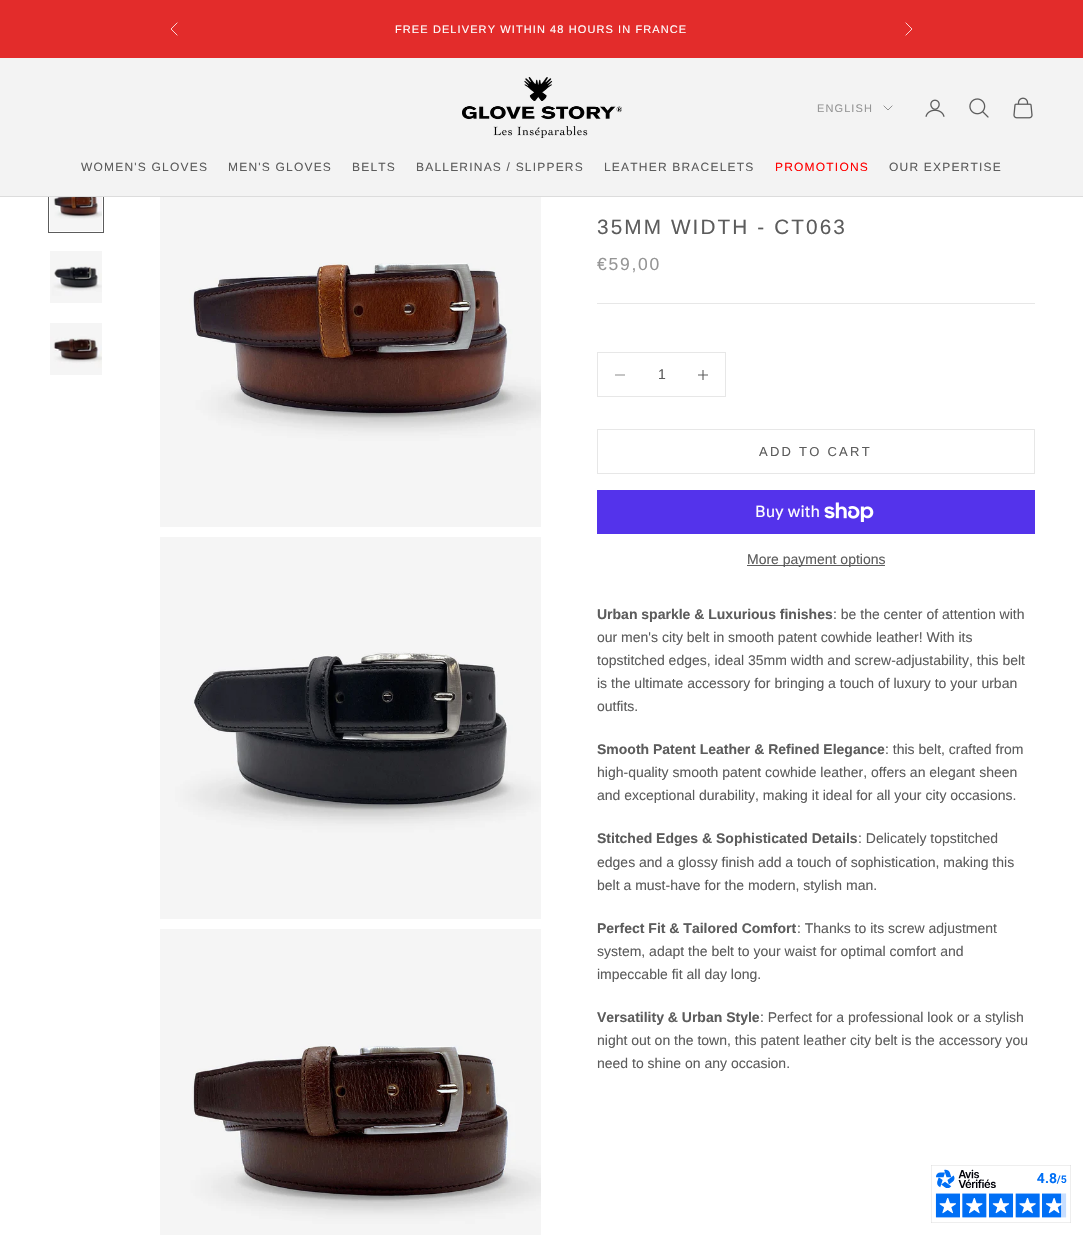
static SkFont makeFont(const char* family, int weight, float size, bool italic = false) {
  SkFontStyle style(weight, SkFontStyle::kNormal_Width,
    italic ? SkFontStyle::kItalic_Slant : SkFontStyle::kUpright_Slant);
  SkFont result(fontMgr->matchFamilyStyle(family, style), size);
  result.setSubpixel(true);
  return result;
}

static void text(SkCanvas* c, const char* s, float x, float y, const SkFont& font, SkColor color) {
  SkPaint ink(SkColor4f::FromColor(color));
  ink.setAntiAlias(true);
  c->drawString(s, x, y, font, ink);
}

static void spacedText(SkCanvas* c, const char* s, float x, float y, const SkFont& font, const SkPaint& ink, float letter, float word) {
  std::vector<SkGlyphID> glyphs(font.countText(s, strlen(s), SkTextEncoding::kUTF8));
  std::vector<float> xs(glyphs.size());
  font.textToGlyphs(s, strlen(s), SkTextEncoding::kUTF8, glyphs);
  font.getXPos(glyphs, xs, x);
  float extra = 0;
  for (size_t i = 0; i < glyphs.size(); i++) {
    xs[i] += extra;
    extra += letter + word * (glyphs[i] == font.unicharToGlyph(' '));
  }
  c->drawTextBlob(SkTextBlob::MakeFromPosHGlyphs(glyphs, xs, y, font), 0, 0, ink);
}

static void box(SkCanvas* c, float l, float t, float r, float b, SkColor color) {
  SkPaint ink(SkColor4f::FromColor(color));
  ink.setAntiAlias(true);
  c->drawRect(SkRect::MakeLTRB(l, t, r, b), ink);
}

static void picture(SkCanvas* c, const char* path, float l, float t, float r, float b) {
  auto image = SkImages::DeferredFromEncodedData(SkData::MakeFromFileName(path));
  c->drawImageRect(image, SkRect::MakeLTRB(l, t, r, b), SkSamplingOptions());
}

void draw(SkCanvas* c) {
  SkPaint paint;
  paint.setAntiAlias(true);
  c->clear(0xffffffff);
  box(c, 0, 0, 1083, 58, 0xffe32c2b);
  paint.setStyle(SkPaint::kStroke_Style);
  paint.setStrokeWidth(0.8f);
  paint.setStrokeCap(SkPaint::kSquare_Cap);
  paint.setColor(0xffffffff);
  c->drawPath(SkPathBuilder().moveTo(177, 23).lineTo(171, 29).lineTo(177, 35).detach(), paint);
  SkFont face1 = makeFont("Liberation Sans", 400, 11);
  paint.setStyle(SkPaint::kFill_Style);
  spacedText(c, "FREE DELIVERY WITHIN 48 HOURS IN FRANCE", 395, 33, face1, paint, 1.1f, 0);
  paint.setStyle(SkPaint::kStroke_Style);
  c->drawPath(SkPathBuilder().moveTo(906, 35).lineTo(912, 29).lineTo(906, 23).detach(), paint);
  paint.setStrokeWidth(1);
  paint.setStrokeCap(SkPaint::kButt_Cap);
  paint.setColor(0xff5c5c5c);
  c->drawRect(SkRect::MakeLTRB(48.5f, 177.5f, 103.5f, 232.5f), paint);
  box(c, 0, 58, 1083, 196, 0xfff3f3f3);
  box(c, 0, 196, 1083, 197, 0xffdcdcdc);
  picture(c, "img_01.png", 462, 77, 622, 138);
  paint.setStyle(SkPaint::kFill_Style);
  paint.setColor(0xff959595);
  spacedText(c, "ENGLISH", 817, 112, face1, paint, 1.1f, 0);
  paint.setStyle(SkPaint::kStroke_Style);
  paint.setStrokeCap(SkPaint::kSquare_Cap);
  paint.setColor(0xff919191);
  c->drawPath(SkPathBuilder().moveTo(884, 106).lineTo(888, 110).lineTo(892, 106).detach(), paint);
  picture(c, "img_02.png", 925, 99, 945, 117);
  picture(c, "img_03.png", 969, 98, 989, 118);
  picture(c, "img_04.png", 1013, 97, 1033, 119);
  SkFont face2 = makeFont("Liberation Sans", 400, 12);
  paint.setStyle(SkPaint::kFill_Style);
  paint.setColor(0xff5c5c5c);
  spacedText(c, "WOMEN'S GLOVES", 81, 171, face2, paint, 1.2f, 0);
  spacedText(c, "MEN'S GLOVES", 228, 171, face2, paint, 1.2f, 0);
  spacedText(c, "BELTS", 352, 171, face2, paint, 1.2f, 0);
  spacedText(c, "BALLERINAS / SLIPPERS", 416, 171, face2, paint, 1.2f, 0);
  spacedText(c, "LEATHER BRACELETS", 604, 171, face2, paint, 1.2f, 0);
  paint.setColor(0xffff0000);
  spacedText(c, "PROMOTIONS", 775, 171, face2, paint, 1.2f, 0);
  paint.setColor(0xff5c5c5c);
  spacedText(c, "OUR EXPERTISE", 889, 171, face2, paint, 1.2f, 0);
  picture(c, "img_05.png", 50, 197, 102, 231);
  picture(c, "img_06.png", 50, 251, 102, 303);
  picture(c, "img_07.png", 50, 323, 102, 375);
  picture(c, "img_08.png", 160, 197, 541, 527);
  picture(c, "img_09.png", 160, 537, 541, 919);
  picture(c, "img_10.png", 160, 929, 541, 1235);
  SkFont face3 = makeFont("Liberation Sans", 400, 20.75f);
  spacedText(c, "35MM WIDTH - CT063", 597, 234, face3, paint, 2.1f, 0);
  SkFont face4 = makeFont("Liberation Sans", 400, 17.5f);
  paint.setColor(0xff959595);
  spacedText(c, "€59,00", 597, 270, face4, paint, 1.75f, 0);
  box(c, 597, 303, 1035, 304, 0xffe7e7e7);
  paint.setStyle(SkPaint::kStroke_Style);
  paint.setStrokeCap(SkPaint::kButt_Cap);
  paint.setColor(0xffe7e7e7);
  c->drawRect(SkRect::MakeLTRB(597.5f, 352.5f, 725.5f, 396.5f), paint);
  paint.setStrokeWidth(1.1f);
  paint.setColor(0xff959595);
  c->drawPath(SkPathBuilder().moveTo(615, 375).lineTo(625, 375).detach(), paint);
  SkFont face5 = makeFont("Liberation Sans", 400, 14);
  text(c, "1", 658, 379, face5, 0xff5c5c5c);
  paint.setColor(0xff5c5c5c);
  c->drawPath(SkPathBuilder().moveTo(703, 370).lineTo(703, 380).moveTo(698, 375).lineTo(708, 375).detach(), paint);
  paint.setStrokeWidth(1);
  paint.setColor(0xffe7e7e7);
  c->drawRect(SkRect::MakeLTRB(597.5f, 429.5f, 1034.5f, 473.5f), paint);
  SkFont face6 = makeFont("Liberation Sans", 400, 13);
  paint.setStyle(SkPaint::kFill_Style);
  paint.setColor(0xff5c5c5c);
  spacedText(c, "ADD TO CART", 759, 456, face6, paint, 2.25f, 0);
  box(c, 597, 490, 1035, 534, 0xff5433eb);
  SkFont face7 = makeFont("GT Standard", 400, 16);
  text(c, "Buy with", 755, 517, face7, 0xffffffff);
  picture(c, "img_11.png", 824, 502, 874, 522);
  box(c, 747, 565, 885, 566, 0xff5c5c5c);
  text(c, "More payment options", 747, 564, face5, 0xff5c5c5c);
  SkFont face8 = makeFont("Liberation Sans", 700, 14);
  text(c, "Urban sparkle & Luxurious finishes", 597, 619, face8, 0xff5c5c5c);
  text(c, ": be the center of attention with", 833, 619, face5, 0xff5c5c5c);
  text(c, "our men's city belt in smooth patent cowhide leather! With its", 597, 642, face5, 0xff5c5c5c);
  text(c, "topstitched edges, ideal 35mm width and screw-adjustability, this belt", 597, 665, face5, 0xff5c5c5c);
  text(c, "is the ultimate accessory for bringing a touch of luxury to your urban", 597, 688, face5, 0xff5c5c5c);
  text(c, "outfits.", 597, 711, face5, 0xff5c5c5c);
  text(c, "Smooth Patent Leather & Refined Elegance", 597, 754, face8, 0xff5c5c5c);
  text(c, ": this belt, crafted from", 885, 754, face5, 0xff5c5c5c);
  text(c, "high-quality smooth patent cowhide leather, offers an elegant sheen", 597, 777, face5, 0xff5c5c5c);
  text(c, "and exceptional durability, making it ideal for all your city occasions.", 597, 800, face5, 0xff5c5c5c);
  text(c, "Stitched Edges & Sophisticated Details", 597, 843, face8, 0xff5c5c5c);
  text(c, ": Delicately topstitched", 858, 843, face5, 0xff5c5c5c);
  text(c, "edges and a glossy finish add a touch of sophistication, making this", 597, 867, face5, 0xff5c5c5c);
  text(c, "belt a must-have for the modern, stylish man.", 597, 890, face5, 0xff5c5c5c);
  text(c, "Perfect Fit & Tailored Comfort", 597, 933, face8, 0xff5c5c5c);
  text(c, ": Thanks to its screw adjustment", 797, 933, face5, 0xff5c5c5c);
  text(c, "system, adapt the belt to your waist for optimal comfort and", 597, 956, face5, 0xff5c5c5c);
  text(c, "impeccable fit all day long.", 597, 979, face5, 0xff5c5c5c);
  text(c, "Versatility & Urban Style", 597, 1022, face8, 0xff5c5c5c);
  text(c, ": Perfect for a professional look or a stylish", 760, 1022, face5, 0xff5c5c5c);
  text(c, "night out on the town, this patent leather city belt is the accessory you", 597, 1045, face5, 0xff5c5c5c);
  text(c, "need to shine on any occasion.", 597, 1068, face5, 0xff5c5c5c);
  picture(c, "img_12.png", 931, 1165, 1071, 1223);
}
